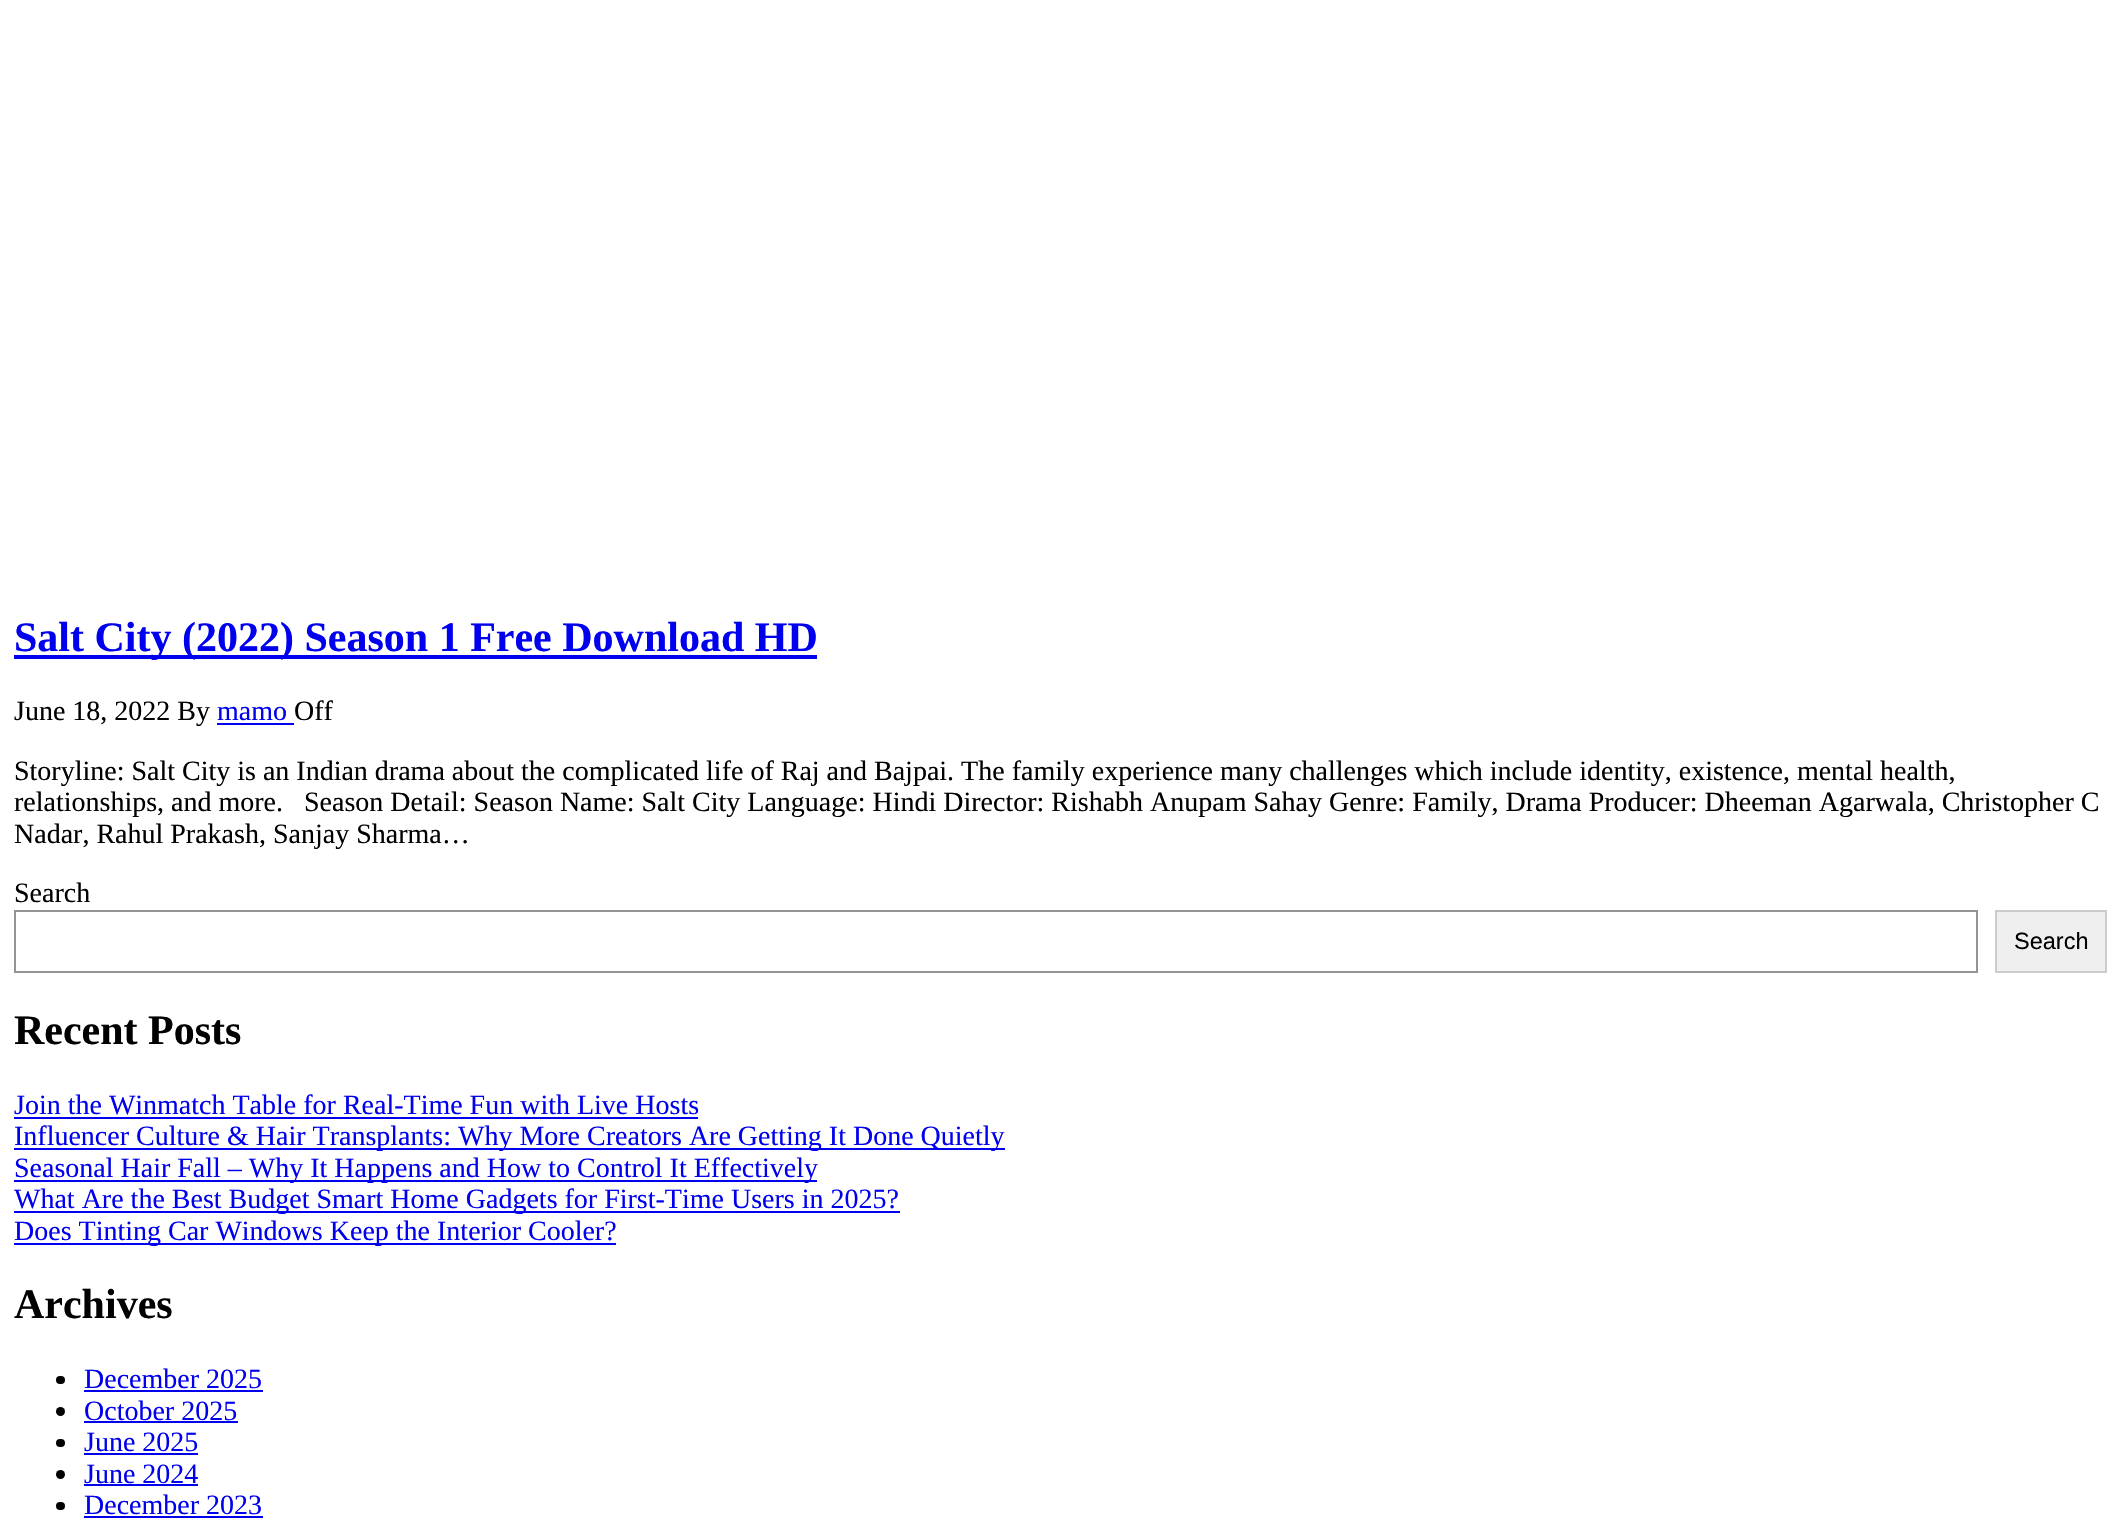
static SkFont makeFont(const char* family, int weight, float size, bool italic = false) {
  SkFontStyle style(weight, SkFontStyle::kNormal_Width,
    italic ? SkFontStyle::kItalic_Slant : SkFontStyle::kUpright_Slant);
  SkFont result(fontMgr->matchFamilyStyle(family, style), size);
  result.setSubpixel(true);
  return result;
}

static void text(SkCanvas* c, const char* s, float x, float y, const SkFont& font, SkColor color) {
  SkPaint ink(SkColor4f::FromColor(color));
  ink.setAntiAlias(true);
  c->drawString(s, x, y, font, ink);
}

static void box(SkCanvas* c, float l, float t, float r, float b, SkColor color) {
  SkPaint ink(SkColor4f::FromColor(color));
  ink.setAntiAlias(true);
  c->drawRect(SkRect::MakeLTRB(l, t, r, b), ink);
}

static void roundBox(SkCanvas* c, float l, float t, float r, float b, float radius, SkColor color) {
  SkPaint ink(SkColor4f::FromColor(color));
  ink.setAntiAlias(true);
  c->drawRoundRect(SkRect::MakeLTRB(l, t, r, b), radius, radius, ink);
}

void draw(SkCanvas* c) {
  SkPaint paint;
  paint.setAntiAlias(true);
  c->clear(0xffffffff);
  box(c, 14, 655, 817, 659, 0xff0000ee);
  SkFont face1 = makeFont("Liberation Serif", 700, 42);
  text(c, "Salt City (2022) Season 1 Free Download HD", 14, 651, face1, 0xff0000ee);
  SkFont face2 = makeFont("Liberation Serif", 400, 28);
  text(c, "June 18, 2022 By", 14, 720, face2, 0xff000000);
  text(c, "mamo", 217, 720, face2, 0xff0000ee);
  box(c, 217, 723, 294, 725, 0xff0000ee);
  text(c, "Off", 294, 720, face2, 0xff000000);
  text(c, "Storyline: Salt City is an Indian drama about the complicated life of Raj and Bajpai. The family experience many challenges which include identity, existence, mental health,", 14, 780, face2, 0xff000000);
  text(c, "relationships, and more.   Season Detail: Season Name: Salt City Language: Hindi Director: Rishabh Anupam Sahay Genre: Family, Drama Producer: Dheeman Agarwala, Christopher C", 14, 811, face2, 0xff000000);
  text(c, "Nadar, Rahul Prakash, Sanjay Sharma…", 14, 843, face2, 0xff000000);
  text(c, "Search", 14, 902, face2, 0xff000000);
  paint.setStyle(SkPaint::kStroke_Style);
  paint.setStrokeWidth(2);
  paint.setColor(0xff949494);
  c->drawRect(SkRect::MakeLTRB(15, 911, 1977, 972), paint);
  paint.setStyle(SkPaint::kFill_Style);
  paint.setColor(0xffefefef);
  c->drawRect(SkRect::MakeLTRB(1996, 911, 2106, 972), paint);
  paint.setStyle(SkPaint::kStroke_Style);
  paint.setColor(0xffcccccc);
  c->drawRect(SkRect::MakeLTRB(1996, 911, 2106, 972), paint);
  SkFont face3 = makeFont("Liberation Sans", 400, 23.5f);
  text(c, "Search", 2014, 949, face3, 0xff000000);
  text(c, "Recent Posts", 14, 1044, face1, 0xff000000);
  text(c, "Join the Winmatch Table for Real-Time Fun with Live Hosts", 14, 1114, face2, 0xff0000ee);
  box(c, 14, 1117, 698, 1119, 0xff0000ee);
  box(c, 14, 1148, 1005, 1150, 0xff0000ee);
  text(c, "Influencer Culture & Hair Transplants: Why More Creators Are Getting It Done Quietly", 14, 1145, face2, 0xff0000ee);
  box(c, 14, 1180, 817, 1182, 0xff0000ee);
  text(c, "Seasonal Hair Fall – Why It Happens and How to Control It Effectively", 14, 1177, face2, 0xff0000ee);
  box(c, 14, 1211, 900, 1213, 0xff0000ee);
  text(c, "What Are the Best Budget Smart Home Gadgets for First-Time Users in 2025?", 14, 1208, face2, 0xff0000ee);
  box(c, 14, 1243, 616, 1245, 0xff0000ee);
  text(c, "Does Tinting Car Windows Keep the Interior Cooler?", 14, 1240, face2, 0xff0000ee);
  text(c, "Archives", 14, 1318, face1, 0xff000000);
  roundBox(c, 56, 1376, 65, 1384, 4, 0xff000000);
  text(c, "December 2025", 84, 1388, face2, 0xff0000ee);
  box(c, 84, 1390, 263, 1392, 0xff0000ee);
  paint.setStyle(SkPaint::kFill_Style);
  paint.setColor(0xff000000);
  c->drawCircle(60.5f, 1411.5f, 4.5f, paint);
  text(c, "October 2025", 84, 1420, face2, 0xff0000ee);
  box(c, 84, 1421, 238, 1423, 0xff0000ee);
  roundBox(c, 56, 1439, 65, 1447, 4, 0xff000000);
  text(c, "June 2025", 84, 1451, face2, 0xff0000ee);
  box(c, 84, 1453, 198, 1455, 0xff0000ee);
  c->drawCircle(60.5f, 1474.5f, 4.5f, paint);
  text(c, "June 2024", 84, 1483, face2, 0xff0000ee);
  box(c, 84, 1484, 198, 1486, 0xff0000ee);
  roundBox(c, 56, 1502, 65, 1510, 4, 0xff000000);
  text(c, "December 2023", 84, 1514, face2, 0xff0000ee);
  box(c, 84, 1516, 263, 1518, 0xff0000ee);
}
